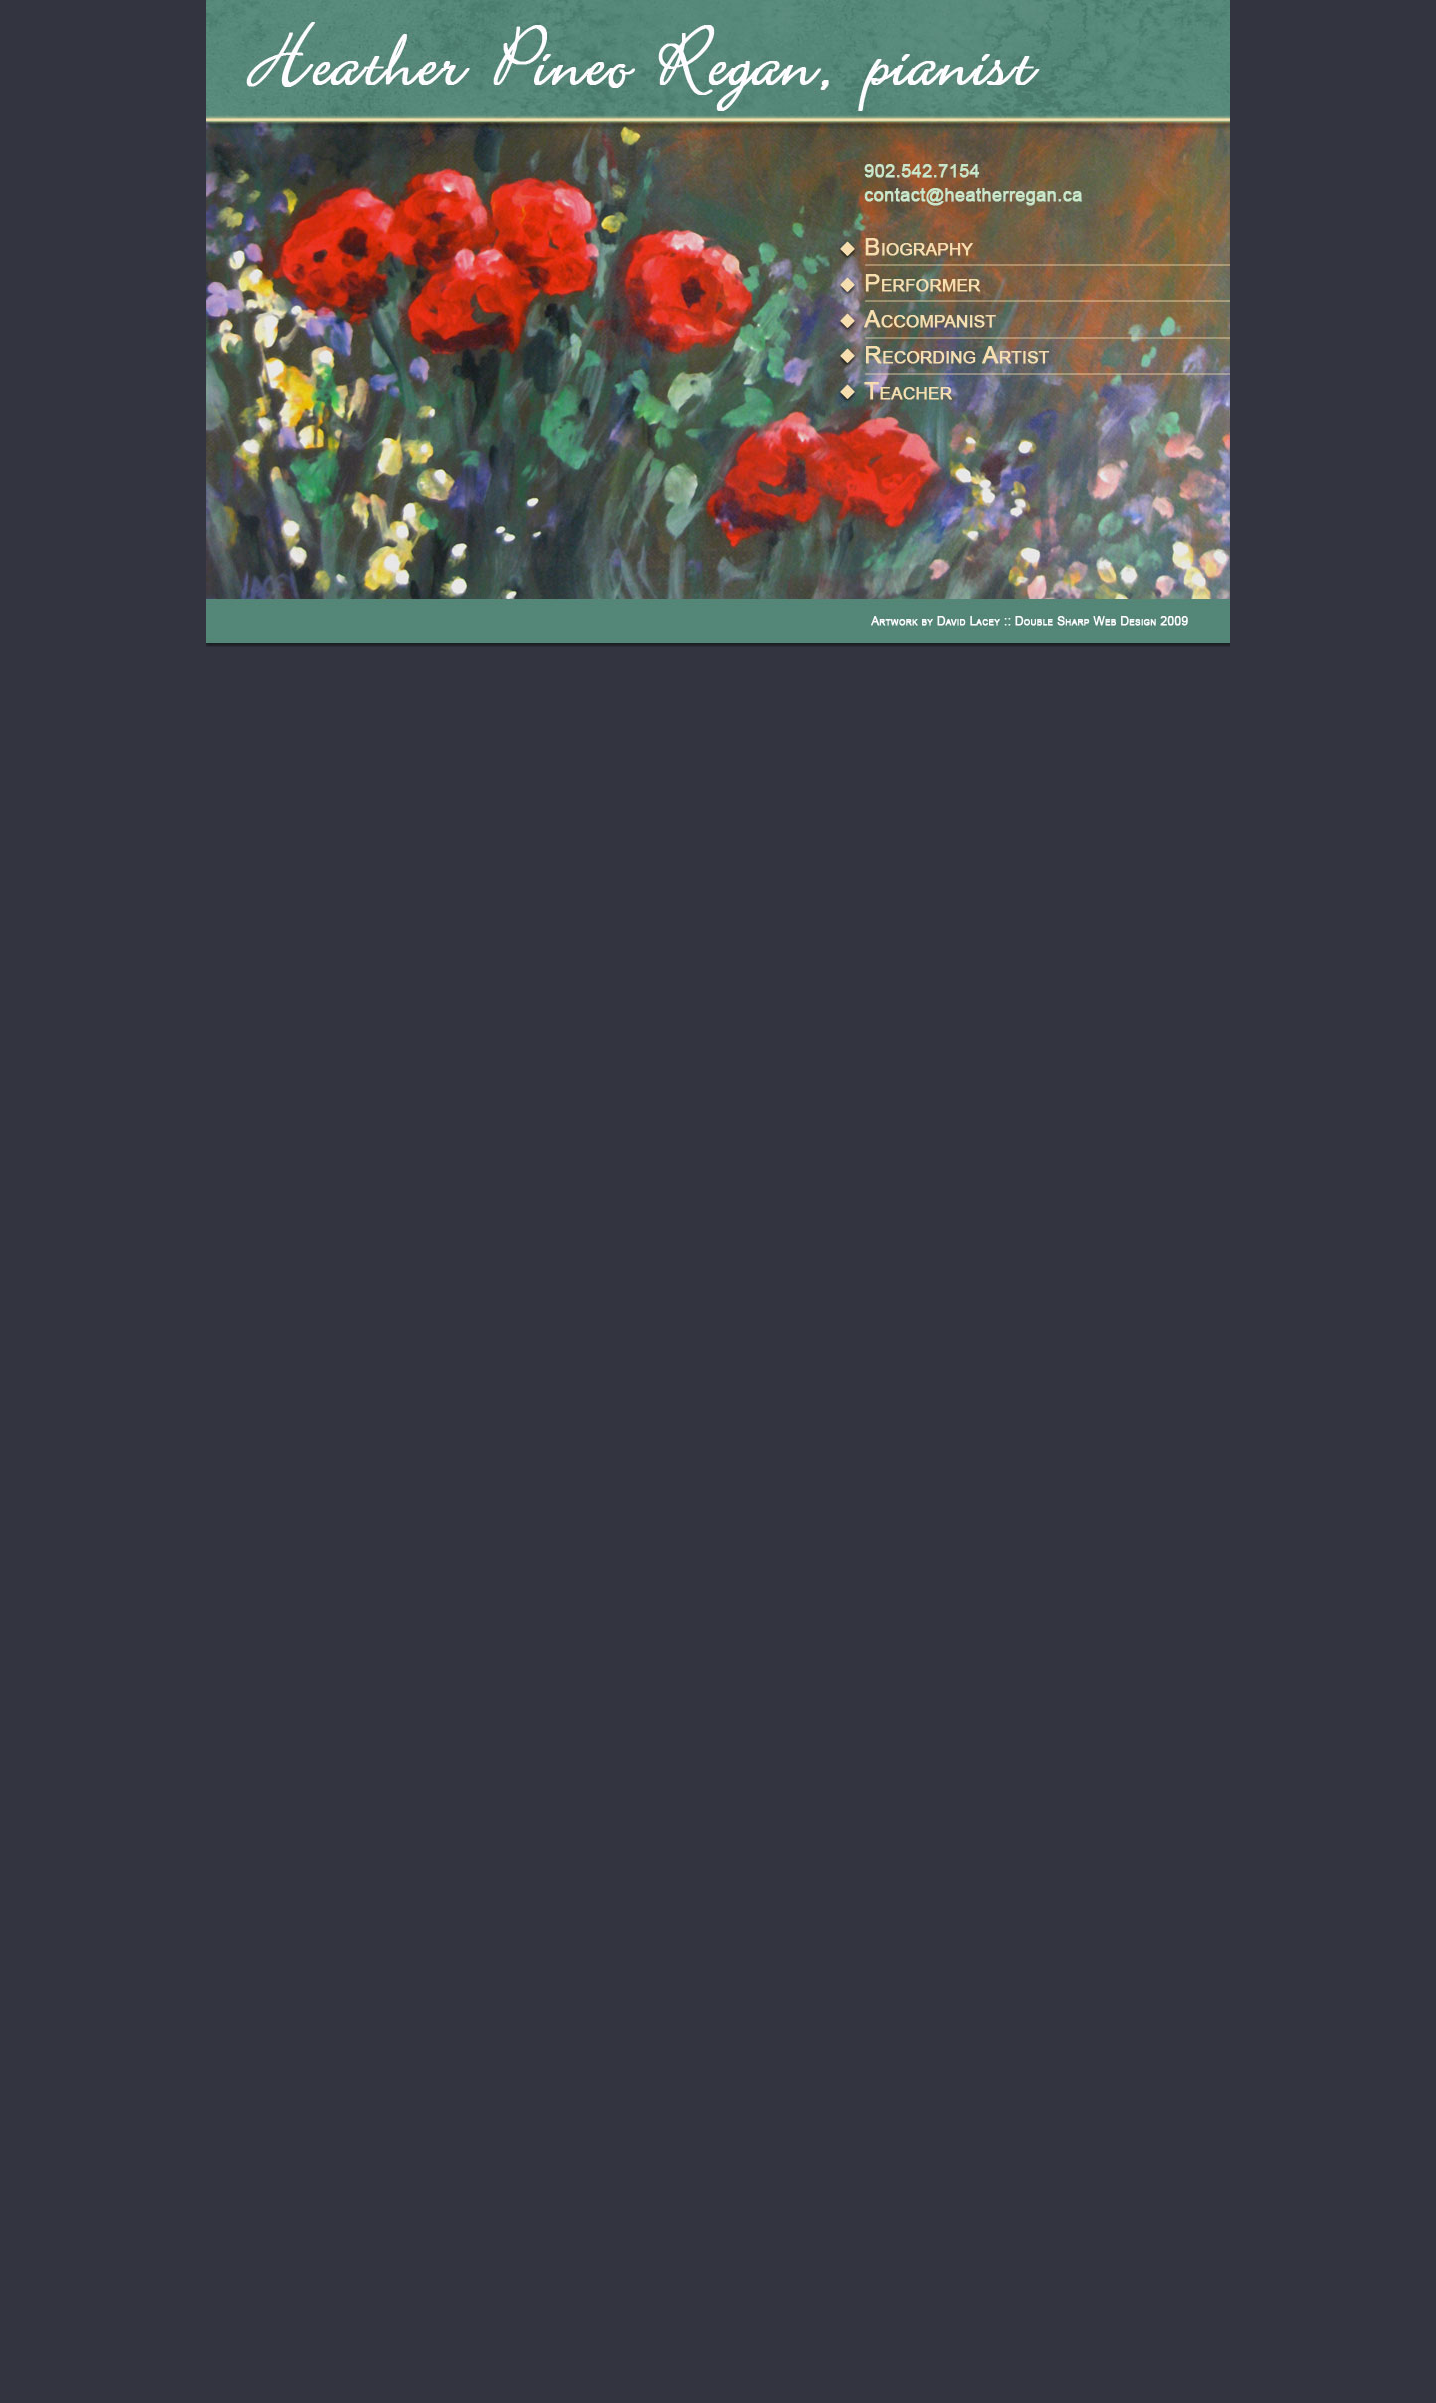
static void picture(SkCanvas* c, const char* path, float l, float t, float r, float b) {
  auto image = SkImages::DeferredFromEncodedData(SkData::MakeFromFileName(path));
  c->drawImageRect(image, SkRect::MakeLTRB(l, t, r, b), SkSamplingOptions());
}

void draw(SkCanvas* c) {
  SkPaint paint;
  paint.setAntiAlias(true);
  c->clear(0xff333440);
  picture(c, "img_01.png", 206, 0, 1230, 114);
  picture(c, "img_02.png", 206, 114, 832, 598);
  picture(c, "img_03.png", 832, 114, 1230, 598);
  picture(c, "img_04.png", 206, 598, 1230, 647);
}
